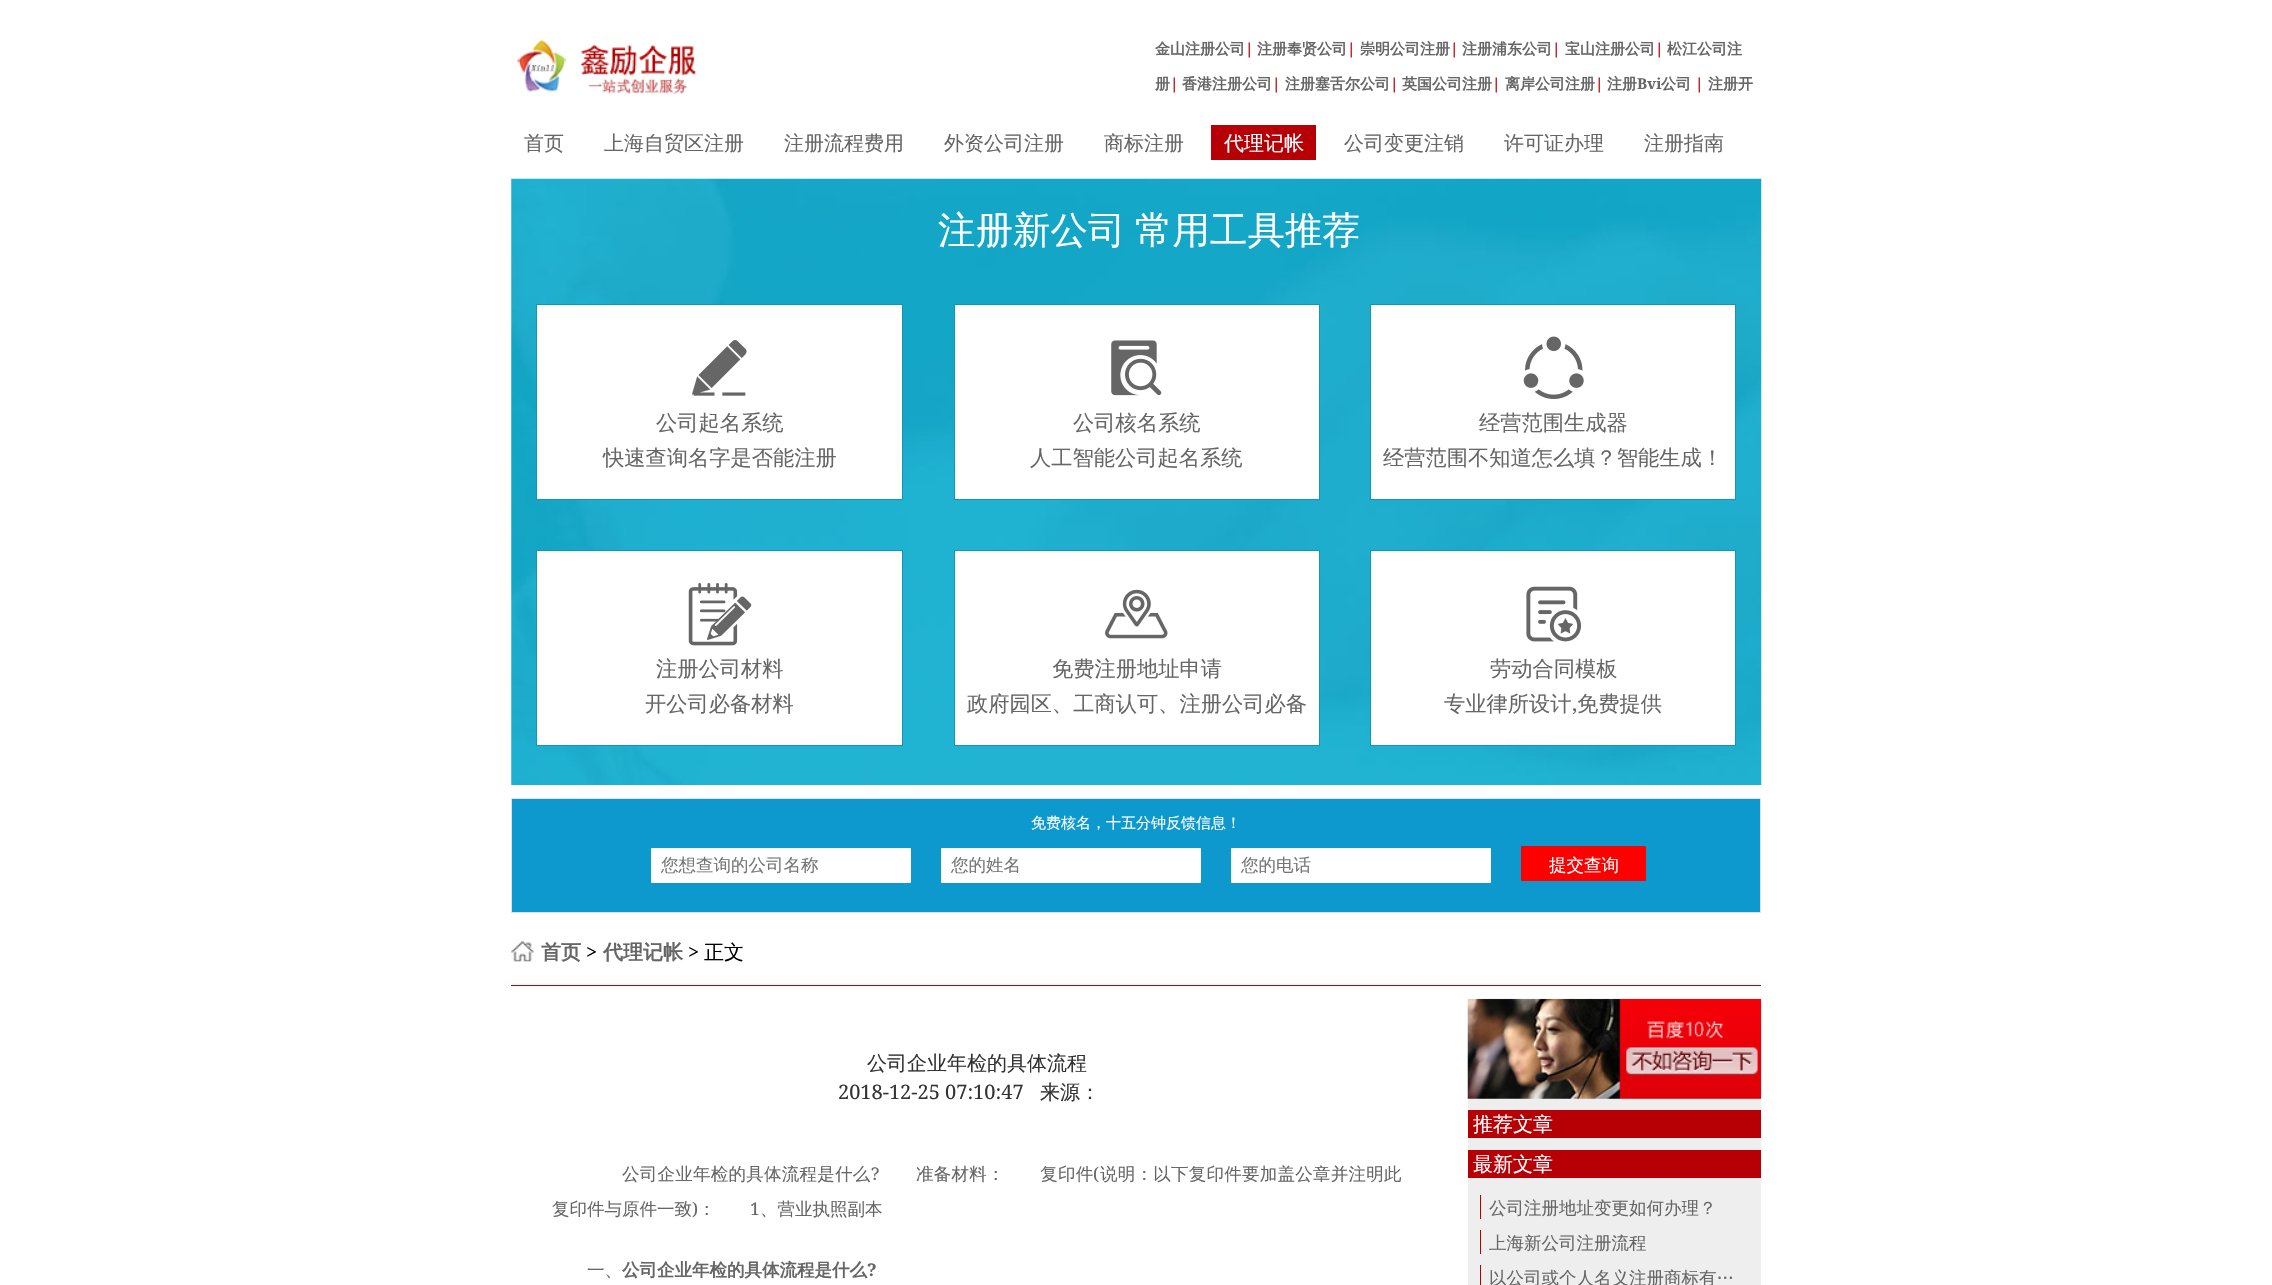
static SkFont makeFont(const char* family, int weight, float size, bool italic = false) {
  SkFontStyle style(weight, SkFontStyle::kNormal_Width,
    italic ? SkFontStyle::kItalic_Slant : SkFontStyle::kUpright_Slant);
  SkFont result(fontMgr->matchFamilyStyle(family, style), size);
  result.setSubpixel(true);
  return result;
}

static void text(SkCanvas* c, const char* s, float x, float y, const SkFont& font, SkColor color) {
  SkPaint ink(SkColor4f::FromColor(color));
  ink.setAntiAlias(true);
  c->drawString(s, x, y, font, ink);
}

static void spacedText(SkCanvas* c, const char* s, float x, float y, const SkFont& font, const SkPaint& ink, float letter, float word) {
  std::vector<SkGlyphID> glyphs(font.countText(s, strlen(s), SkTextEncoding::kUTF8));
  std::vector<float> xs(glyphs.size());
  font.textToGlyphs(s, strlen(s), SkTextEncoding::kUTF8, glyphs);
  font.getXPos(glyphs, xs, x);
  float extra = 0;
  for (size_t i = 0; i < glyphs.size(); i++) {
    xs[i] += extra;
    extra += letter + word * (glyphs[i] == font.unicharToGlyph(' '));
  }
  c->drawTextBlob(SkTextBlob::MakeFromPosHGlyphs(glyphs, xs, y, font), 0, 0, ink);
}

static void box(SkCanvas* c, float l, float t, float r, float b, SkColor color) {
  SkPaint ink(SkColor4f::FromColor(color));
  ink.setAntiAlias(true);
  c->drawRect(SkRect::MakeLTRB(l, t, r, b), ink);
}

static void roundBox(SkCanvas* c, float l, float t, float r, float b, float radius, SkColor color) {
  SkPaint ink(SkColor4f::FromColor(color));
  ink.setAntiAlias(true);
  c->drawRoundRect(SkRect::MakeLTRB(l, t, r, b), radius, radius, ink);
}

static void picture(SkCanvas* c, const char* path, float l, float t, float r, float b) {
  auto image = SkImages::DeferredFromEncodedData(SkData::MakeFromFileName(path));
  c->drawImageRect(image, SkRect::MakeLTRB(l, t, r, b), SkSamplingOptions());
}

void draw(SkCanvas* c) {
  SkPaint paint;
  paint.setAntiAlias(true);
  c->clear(0xffffffff);
  picture(c, "img_01.png", 517, 39, 697, 94);
  SkFont face1 = makeFont("WenQuanYi Zen Hei", 700, 15);
  text(c, "金山注册公司", 1155, 54, face1, 0xff666666);
  SkFont face2 = makeFont("Noto Serif", 700, 15);
  text(c, "|", 1245, 54, face2, 0xffb70005);
  text(c, "注册奉贤公司", 1257, 54, face1, 0xff666666);
  text(c, "|", 1347, 54, face2, 0xffb70005);
  text(c, "崇明公司注册", 1360, 54, face1, 0xff666666);
  text(c, "|", 1450, 54, face2, 0xffb70005);
  text(c, "注册浦东公司", 1462, 54, face1, 0xff666666);
  text(c, "|", 1552, 54, face2, 0xffb70005);
  text(c, "宝山注册公司", 1565, 54, face1, 0xff666666);
  text(c, "|", 1655, 54, face2, 0xffb70005);
  text(c, "松江公司注", 1667, 54, face1, 0xff666666);
  text(c, "册", 1155, 89, face1, 0xff666666);
  text(c, "|", 1170, 89, face2, 0xffb70005);
  text(c, "香港注册公司", 1182, 89, face1, 0xff666666);
  text(c, "|", 1272, 89, face2, 0xffb70005);
  text(c, "注册塞舌尔公司", 1285, 89, face1, 0xff666666);
  text(c, "|", 1390, 89, face2, 0xffb70005);
  text(c, "英国公司注册", 1402, 89, face1, 0xff666666);
  text(c, "|", 1492, 89, face2, 0xffb70005);
  text(c, "离岸公司注册", 1505, 89, face1, 0xff666666);
  text(c, "|", 1595, 89, face2, 0xffb70005);
  text(c, "注册", 1607, 89, face1, 0xff666666);
  text(c, "Bvi", 1637, 89, face2, 0xff666666);
  text(c, "公司", 1661, 89, face1, 0xff666666);
  text(c, "|", 1695, 89, face2, 0xffb70005);
  text(c, "注册开", 1708, 89, face1, 0xff666666);
  SkFont face3 = makeFont("WenQuanYi Zen Hei", 500, 20);
  text(c, "首页", 524, 150, face3, 0xff666666);
  text(c, "上海自贸区注册", 604, 150, face3, 0xff666666);
  text(c, "注册流程费用", 784, 150, face3, 0xff666666);
  text(c, "外资公司注册", 944, 150, face3, 0xff666666);
  text(c, "商标注册", 1104, 150, face3, 0xff666666);
  box(c, 1211, 125, 1316, 160, 0xffb70005);
  text(c, "代理记帐", 1224, 150, face3, 0xffffffff);
  text(c, "公司变更注销", 1344, 150, face3, 0xff666666);
  text(c, "许可证办理", 1504, 150, face3, 0xff666666);
  text(c, "注册指南", 1644, 150, face3, 0xff666666);
  picture(c, "img_02.png", 511, 178, 1762, 785);
  SkFont face4 = makeFont("WenQuanYi Zen Hei", 500, 37.5f);
  text(c, "注册新公司", 938, 243, face4, 0xffffffff);
  text(c, "常用工具推荐", 1135, 243, face4, 0xffffffff);
  paint.setColor(0xffffffff);
  c->drawRect(SkRect::MakeLTRB(536.5f, 304.5f, 902.5f, 499.5f), paint);
  paint.setStyle(SkPaint::kStroke_Style);
  paint.setStrokeWidth(1);
  paint.setColor(0xff1196b4);
  c->drawRect(SkRect::MakeLTRB(536.5f, 304.5f, 902.5f, 499.5f), paint);
  picture(c, "img_03.png", 691, 340, 747, 396);
  SkFont face5 = makeFont("WenQuanYi Zen Hei", 500, 21.25f);
  text(c, "公司起名系统", 656, 430, face5, 0xff666666);
  text(c, "快速查询名字是否能注册", 603, 465, face5, 0xff666666);
  paint.setStyle(SkPaint::kFill_Style);
  paint.setColor(0xffffffff);
  c->drawRect(SkRect::MakeLTRB(954.5f, 304.5f, 1319.5f, 499.5f), paint);
  paint.setStyle(SkPaint::kStroke_Style);
  paint.setColor(0xff1196b4);
  c->drawRect(SkRect::MakeLTRB(954.5f, 304.5f, 1319.5f, 499.5f), paint);
  picture(c, "img_04.png", 1111, 340, 1162, 396);
  text(c, "公司核名系统", 1073, 430, face5, 0xff666666);
  text(c, "人工智能公司起名系统", 1030, 465, face5, 0xff666666);
  paint.setStyle(SkPaint::kFill_Style);
  paint.setColor(0xffffffff);
  c->drawRect(SkRect::MakeLTRB(1370.5f, 304.5f, 1735.5f, 499.5f), paint);
  paint.setStyle(SkPaint::kStroke_Style);
  paint.setColor(0xff1196b4);
  c->drawRect(SkRect::MakeLTRB(1370.5f, 304.5f, 1735.5f, 499.5f), paint);
  picture(c, "img_05.png", 1523, 336, 1584, 399);
  text(c, "经营范围生成器", 1479, 430, face5, 0xff666666);
  text(c, "经营范围不知道怎么填？智能生成！", 1383, 465, face5, 0xff666666);
  paint.setStyle(SkPaint::kFill_Style);
  paint.setColor(0xffffffff);
  c->drawRect(SkRect::MakeLTRB(536.5f, 550.5f, 902.5f, 745.5f), paint);
  paint.setStyle(SkPaint::kStroke_Style);
  paint.setColor(0xff1196b4);
  c->drawRect(SkRect::MakeLTRB(536.5f, 550.5f, 902.5f, 745.5f), paint);
  picture(c, "img_06.png", 688, 583, 752, 646);
  text(c, "注册公司材料", 656, 676, face5, 0xff666666);
  text(c, "开公司必备材料", 645, 711, face5, 0xff666666);
  paint.setStyle(SkPaint::kFill_Style);
  paint.setColor(0xffffffff);
  c->drawRect(SkRect::MakeLTRB(954.5f, 550.5f, 1319.5f, 745.5f), paint);
  paint.setStyle(SkPaint::kStroke_Style);
  paint.setColor(0xff1196b4);
  c->drawRect(SkRect::MakeLTRB(954.5f, 550.5f, 1319.5f, 745.5f), paint);
  picture(c, "img_07.png", 1105, 589, 1168, 639);
  text(c, "免费注册地址申请", 1052, 676, face5, 0xff666666);
  text(c, "政府园区、工商认可、注册公司必备", 967, 711, face5, 0xff666666);
  paint.setStyle(SkPaint::kFill_Style);
  paint.setColor(0xffffffff);
  c->drawRect(SkRect::MakeLTRB(1370.5f, 550.5f, 1735.5f, 745.5f), paint);
  paint.setStyle(SkPaint::kStroke_Style);
  paint.setColor(0xff1196b4);
  c->drawRect(SkRect::MakeLTRB(1370.5f, 550.5f, 1735.5f, 745.5f), paint);
  picture(c, "img_08.png", 1526, 586, 1582, 642);
  text(c, "劳动合同模板", 1490, 676, face5, 0xff666666);
  text(c, "专业律所设计", 1444, 711, face5, 0xff666666);
  SkFont face6 = makeFont("Noto Serif", 400, 21.25f);
  text(c, ",", 1572, 711, face6, 0xff666666);
  text(c, "免费提供", 1577, 711, face5, 0xff666666);
  paint.setStyle(SkPaint::kFill_Style);
  paint.setColor(0xff0d99cd);
  c->drawRect(SkRect::MakeLTRB(511.5f, 798.5f, 1760.5f, 912.5f), paint);
  paint.setStyle(SkPaint::kStroke_Style);
  paint.setColor(0xffe1e1e1);
  c->drawRect(SkRect::MakeLTRB(511.5f, 798.5f, 1760.5f, 912.5f), paint);
  SkFont face7 = makeFont("WenQuanYi Zen Hei", 500, 15);
  text(c, "免费核名，十五分钟反馈信息！", 1031, 828, face7, 0xffffffff);
  roundBox(c, 651, 848, 911, 883, 1, 0xffffffff);
  SkFont face8 = makeFont("WenQuanYi Zen Hei", 500, 17.5f);
  text(c, "您想查询的公司名称", 661, 871, face8, 0xff757575);
  roundBox(c, 941, 848, 1201, 883, 1, 0xffffffff);
  text(c, "您的姓名", 951, 871, face8, 0xff757575);
  roundBox(c, 1231, 848, 1491, 883, 1, 0xffffffff);
  text(c, "您的电话", 1241, 871, face8, 0xff757575);
  roundBox(c, 1521, 846, 1646, 881, 1, 0xffff0000);
  text(c, "提交查询", 1549, 871, face8, 0xffffffff);
  picture(c, "img_09.png", 511, 941, 534, 962);
  box(c, 511, 985, 1761, 986, 0xffb70005);
  SkFont face9 = makeFont("WenQuanYi Zen Hei", 700, 20);
  text(c, "首页", 541, 959, face9, 0xff666666);
  SkFont face10 = makeFont("Noto Serif", 400, 20);
  text(c, ">", 586, 959, face10, 0xff000000);
  text(c, "代理记帐", 603, 959, face9, 0xff666666);
  text(c, ">", 688, 959, face10, 0xff000000);
  text(c, "正文", 704, 959, face3, 0xff000000);
  text(c, "公司企业年检的具体流程", 867, 1070, face3, 0xff333333);
  text(c, "2018-12-25 07:10:47", 838, 1099, face10, 0xff333333);
  text(c, "来源：", 1040, 1099, face3, 0xff333333);
  paint.setStyle(SkPaint::kFill_Style);
  paint.setColor(0xff666666);
  spacedText(c, "公司企业年检的具体流程是什么", 622, 1180, face8, paint, 0.25f, 0);
  SkFont face11 = makeFont("Noto Serif", 400, 17.5f);
  spacedText(c, "?", 871, 1180, face11, paint, 0.25f, 0);
  spacedText(c, "准备材料：　　复印件", 916, 1180, face8, paint, 0.25f, 0);
  spacedText(c, "(", 1093, 1180, face11, paint, 0.25f, 0);
  spacedText(c, "说明：以下复印件要加盖公章并注明此", 1100, 1180, face8, paint, 0.25f, 0);
  text(c, "复印件与原件一致", 552, 1215, face8, 0xff666666);
  text(c, ")", 692, 1215, face11, 0xff666666);
  text(c, "：", 698, 1215, face8, 0xff666666);
  text(c, "1", 750, 1215, face11, 0xff666666);
  text(c, "、营业执照副本", 760, 1215, face8, 0xff666666);
  text(c, "一、", 587, 1276, face8, 0xff666666);
  SkFont face12 = makeFont("WenQuanYi Zen Hei", 700, 17.5f);
  text(c, "公司企业年检的具体流程是什么", 622, 1276, face12, 0xff666666);
  SkFont face13 = makeFont("Noto Serif", 700, 17.5f);
  text(c, "?", 867, 1276, face13, 0xff666666);
  box(c, 1468, 1098, 1761, 1110, 0xffeeeeee);
  picture(c, "img_10.png", 1467, 998, 1762, 1099);
  box(c, 1468, 1138, 1761, 1285, 0xffeeeeee);
  box(c, 1468, 1110, 1761, 1138, 0xffb70005);
  text(c, "推荐文章", 1473, 1131, face3, 0xffffffff);
  box(c, 1468, 1150, 1761, 1178, 0xffb70005);
  text(c, "最新文章", 1473, 1171, face3, 0xffffffff);
  text(c, "公司注册地址变更如何办理？", 1489, 1214, face8, 0xff666666);
  box(c, 1480, 1195, 1481, 1219, 0xffb70005);
  text(c, "上海新公司注册流程", 1489, 1249, face8, 0xff666666);
  box(c, 1480, 1230, 1481, 1254, 0xffb70005);
  text(c, "以公司或个人名义注册商标有…", 1489, 1284, face8, 0xff666666);
  box(c, 1480, 1265, 1481, 1285, 0xffb70005);
}
